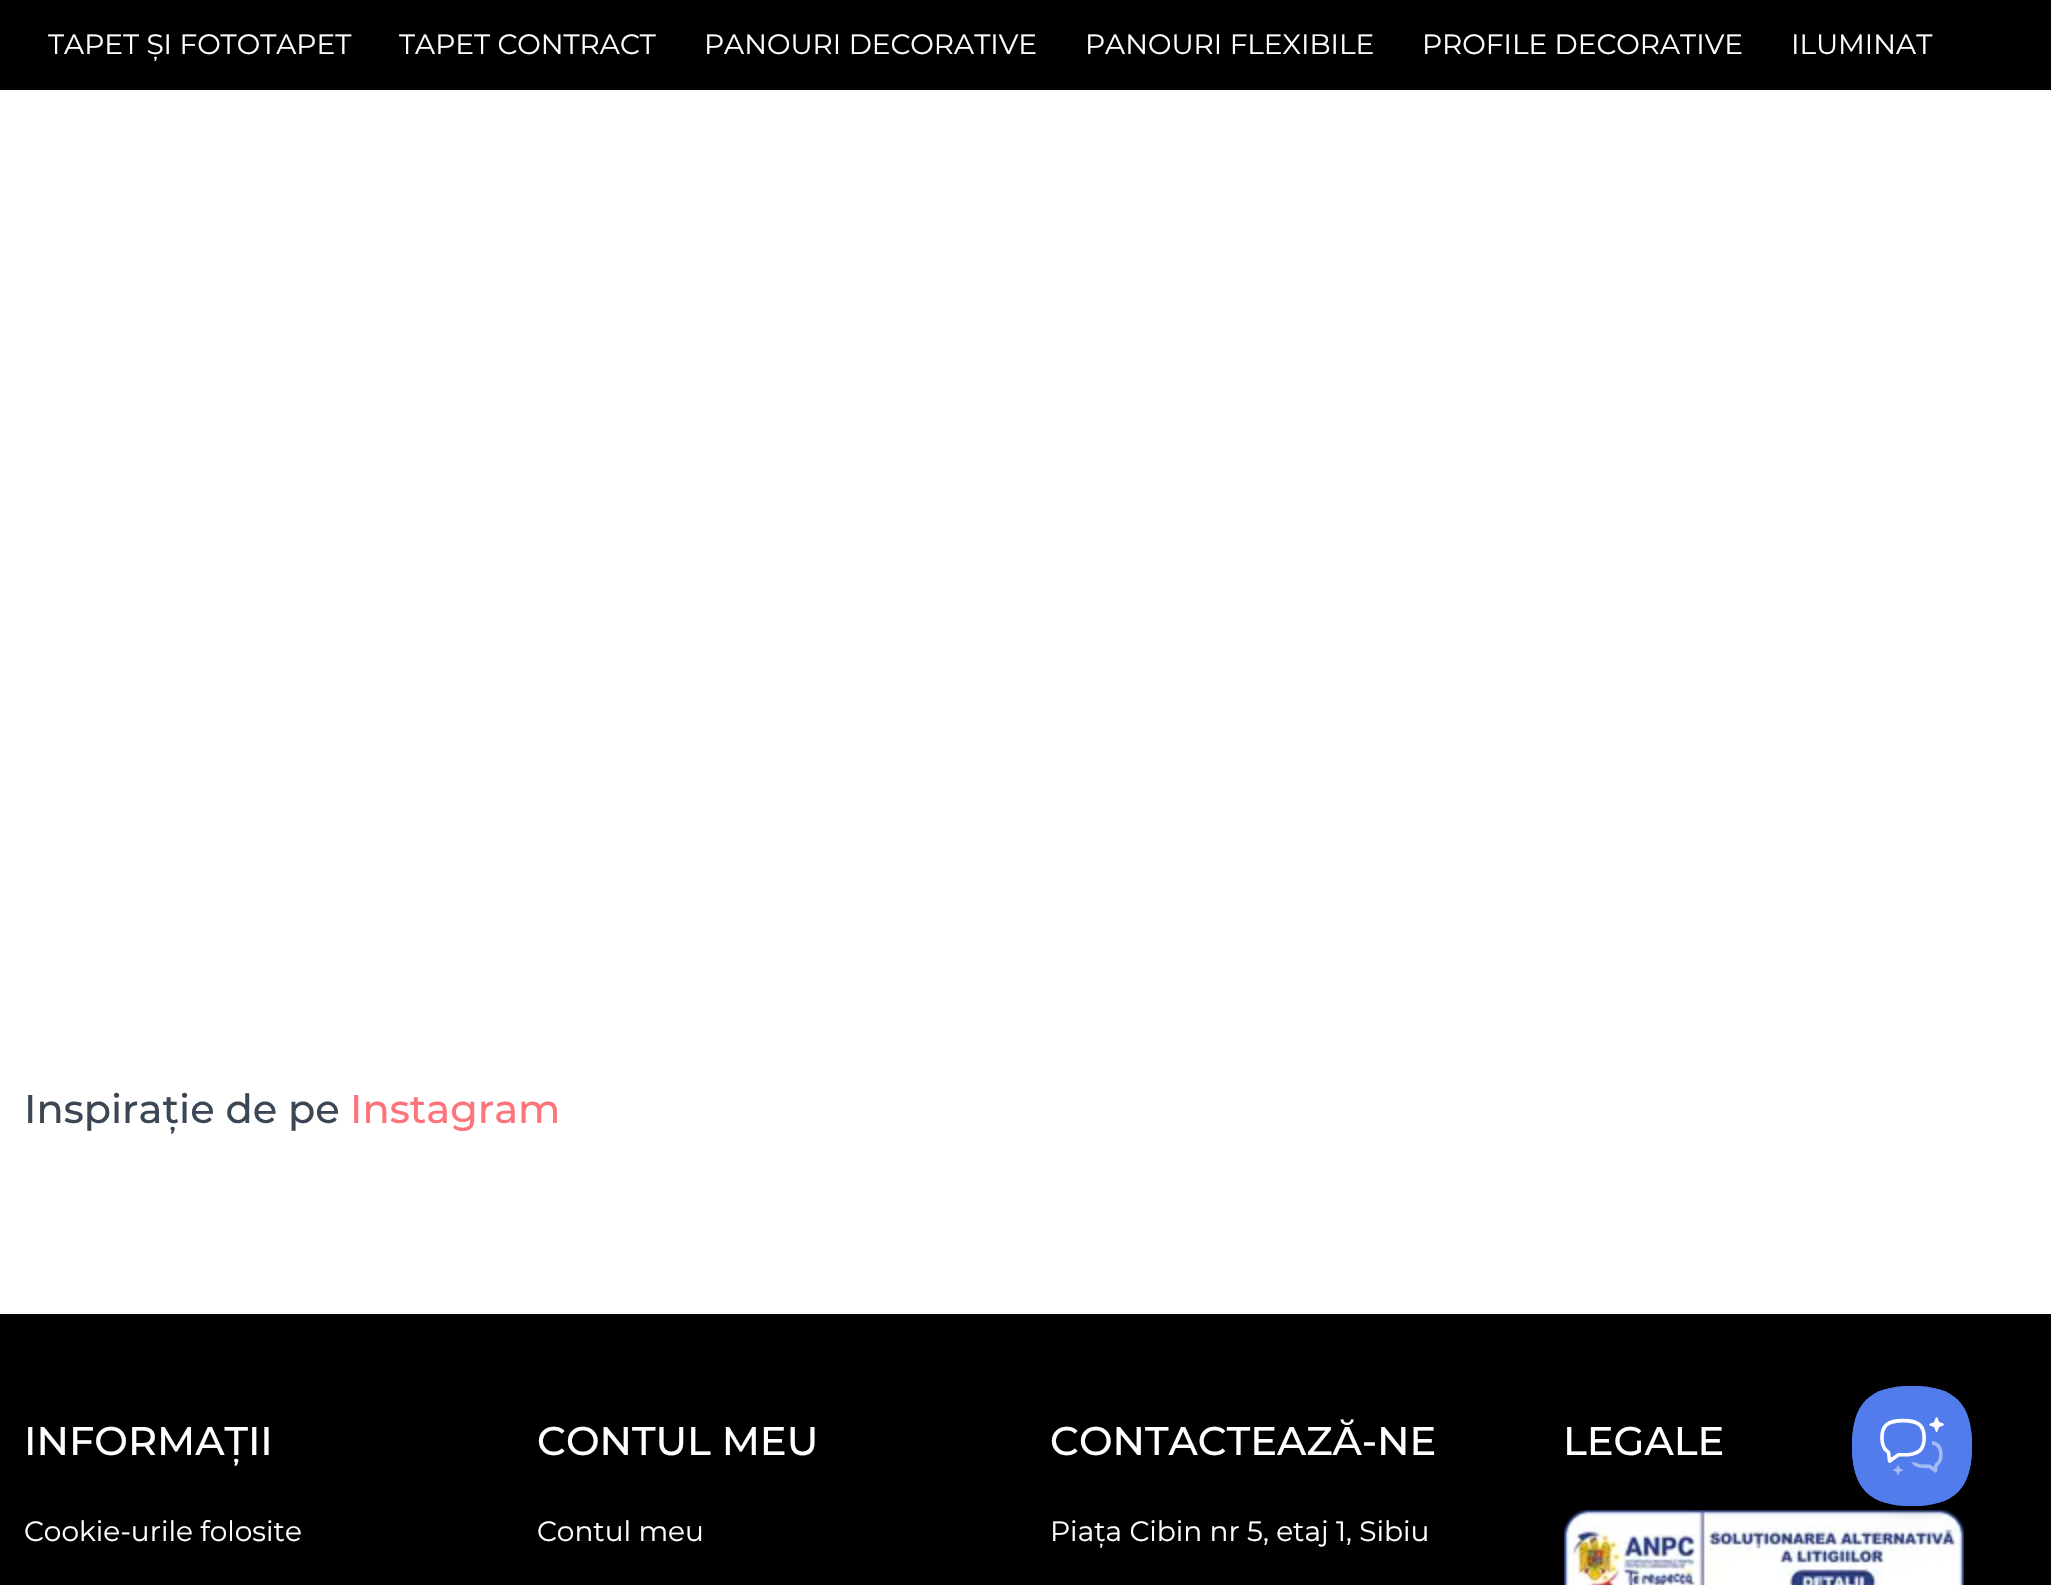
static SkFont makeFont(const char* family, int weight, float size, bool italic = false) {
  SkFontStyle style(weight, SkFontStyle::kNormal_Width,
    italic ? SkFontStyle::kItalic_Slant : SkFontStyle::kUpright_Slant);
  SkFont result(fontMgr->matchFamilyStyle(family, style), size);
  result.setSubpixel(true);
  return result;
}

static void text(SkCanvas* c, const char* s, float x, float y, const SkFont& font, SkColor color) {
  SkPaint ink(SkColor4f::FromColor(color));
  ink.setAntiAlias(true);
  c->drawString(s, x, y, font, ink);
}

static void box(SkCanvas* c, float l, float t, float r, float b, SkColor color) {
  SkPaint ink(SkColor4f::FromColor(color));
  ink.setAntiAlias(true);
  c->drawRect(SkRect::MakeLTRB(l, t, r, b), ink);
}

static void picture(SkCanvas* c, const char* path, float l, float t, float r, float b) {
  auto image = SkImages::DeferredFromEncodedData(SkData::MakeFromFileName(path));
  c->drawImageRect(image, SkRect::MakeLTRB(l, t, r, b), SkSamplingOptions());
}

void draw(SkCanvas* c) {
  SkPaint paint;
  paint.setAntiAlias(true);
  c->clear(0xffffffff);
  box(c, 0, 0, 2051, 90, 0xff000000);
  SkFont face1 = makeFont("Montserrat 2", 100, 28);
  text(c, "TAPET ȘI FOTOTAPET", 48, 54, face1, 0xffffffff);
  text(c, "TAPET CONTRACT", 399, 54, face1, 0xffffffff);
  text(c, "PANOURI DECORATIVE", 704, 54, face1, 0xffffffff);
  text(c, "PANOURI FLEXIBILE", 1085, 54, face1, 0xffffffff);
  text(c, "PROFILE DECORATIVE", 1422, 54, face1, 0xffffffff);
  text(c, "ILUMINAT", 1791, 54, face1, 0xffffffff);
  SkFont face2 = makeFont("Montserrat", 100, 40);
  text(c, "Inspirație de pe", 24, 1123, face2, 0xff3b4754);
  text(c, "Instagram", 350, 1123, face2, 0xffff737c);
  box(c, 0, 1314, 2051, 1585, 0xff000000);
  text(c, "INFORMAȚII", 24, 1455, face2, 0xffffffff);
  text(c, "Cookie-urile folosite", 24, 1541, face1, 0xffffffff);
  text(c, "CONTUL MEU", 537, 1455, face2, 0xffffffff);
  text(c, "Contul meu", 537, 1541, face1, 0xffffffff);
  text(c, "CONTACTEAZĂ-NE", 1050, 1455, face2, 0xffffffff);
  text(c, "Piața Cibin nr 5, etaj 1, Sibiu", 1050, 1541, face1, 0xffffffff);
  text(c, "LEGALE", 1563, 1455, face2, 0xffffffff);
  picture(c, "img_01.png", 1564, 1510, 1964, 1585);
  paint.setColor(0x1a000000);
  paint.setMaskFilter(SkMaskFilter::MakeBlur(kNormal_SkBlurStyle, 7));
  c->drawRoundRect(SkRect::MakeLTRB(1852, 1394, 1972, 1514), 60, 60, paint);
  paint.setMaskFilter(nullptr);
  picture(c, "img_02.png", 1852, 1386, 1972, 1506);
}
